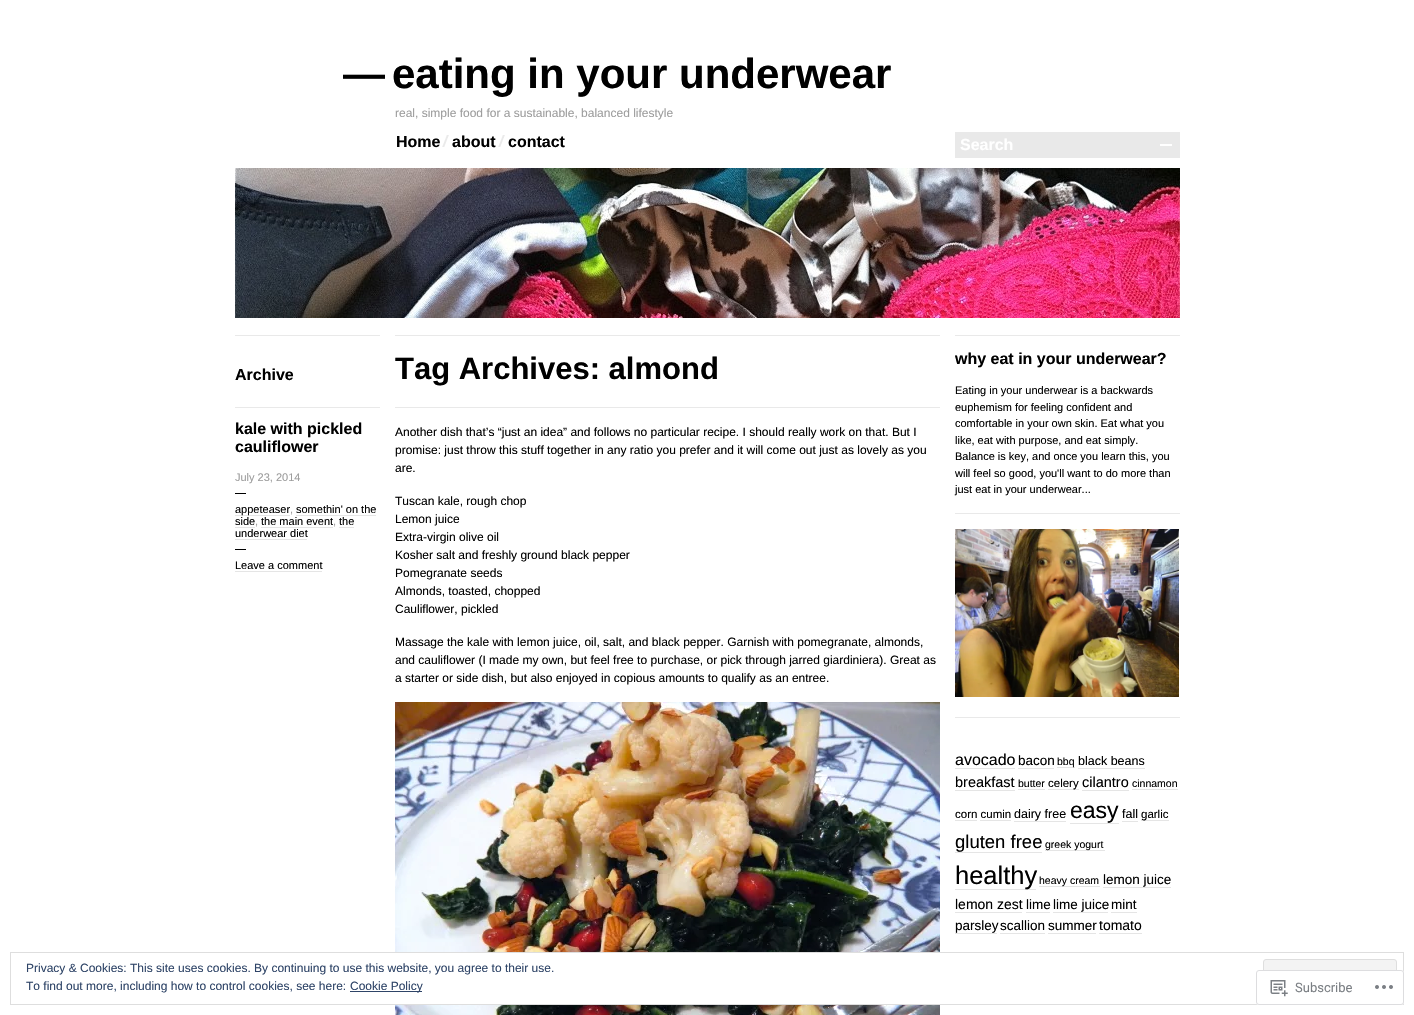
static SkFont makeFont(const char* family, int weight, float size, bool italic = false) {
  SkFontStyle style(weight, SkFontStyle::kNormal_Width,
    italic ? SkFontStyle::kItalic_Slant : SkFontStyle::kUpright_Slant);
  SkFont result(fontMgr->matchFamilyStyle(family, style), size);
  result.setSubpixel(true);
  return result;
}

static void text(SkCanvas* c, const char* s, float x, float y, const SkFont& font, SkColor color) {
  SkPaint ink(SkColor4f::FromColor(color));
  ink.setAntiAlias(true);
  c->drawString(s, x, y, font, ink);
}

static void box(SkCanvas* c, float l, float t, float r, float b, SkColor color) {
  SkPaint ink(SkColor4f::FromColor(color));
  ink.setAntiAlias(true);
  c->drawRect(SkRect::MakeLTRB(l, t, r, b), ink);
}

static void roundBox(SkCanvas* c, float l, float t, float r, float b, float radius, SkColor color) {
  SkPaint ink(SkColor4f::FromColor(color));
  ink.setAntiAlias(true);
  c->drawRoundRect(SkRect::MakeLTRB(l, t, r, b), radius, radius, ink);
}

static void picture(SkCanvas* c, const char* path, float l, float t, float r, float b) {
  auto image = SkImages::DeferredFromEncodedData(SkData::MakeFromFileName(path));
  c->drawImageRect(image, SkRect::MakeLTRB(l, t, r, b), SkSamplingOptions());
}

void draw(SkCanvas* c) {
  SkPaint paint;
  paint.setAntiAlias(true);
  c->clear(0xffffffff);
  SkFont face1 = makeFont("Liberation Sans", 700, 42);
  text(c, "—", 343, 88, face1, 0xff000000);
  text(c, "eating in your underwear", 392, 88, face1, 0xff000000);
  SkFont face2 = makeFont("Liberation Sans", 400, 12);
  text(c, "real, simple food for a sustainable, balanced lifestyle", 395, 117, face2, 0xff9d9d9d);
  picture(c, "img_01.png", 442, 135, 449, 147);
  SkFont face3 = makeFont("Liberation Sans", 700, 16);
  text(c, "Home", 396, 147, face3, 0xff000000);
  picture(c, "img_01.png", 498, 135, 505, 147);
  text(c, "about", 452, 147, face3, 0xff000000);
  text(c, "contact", 508, 147, face3, 0xff000000);
  box(c, 955, 132, 1180, 158, 0xffe9e9e9);
  text(c, "Search", 960, 150, face3, 0xffffffff);
  box(c, 1160, 144, 1172, 146, 0xffffffff);
  picture(c, "img_02.png", 235, 168, 1180, 318);
  box(c, 235, 335, 380, 336, 0xffe9e9e9);
  text(c, "Archive", 235, 380, face3, 0xff000000);
  box(c, 395, 335, 940, 336, 0xffe9e9e9);
  SkFont face4 = makeFont("Liberation Sans", 700, 31);
  text(c, "Tag Archives: almond", 395, 379, face4, 0xff000000);
  box(c, 235, 407, 380, 408, 0xffe9e9e9);
  text(c, "kale with pickled", 235, 434, face3, 0xff000000);
  text(c, "cauliflower", 235, 452, face3, 0xff000000);
  SkFont face5 = makeFont("Liberation Sans", 400, 11);
  text(c, "July 23, 2014", 235, 481, face5, 0xff9d9d9d);
  box(c, 235, 493, 246, 494, 0xff000000);
  box(c, 235, 515, 290, 516, 0xffe5e5e5);
  text(c, "appeteaser", 235, 513, face5, 0xff000000);
  text(c, ",", 290, 513, face5, 0xff9d9d9d);
  text(c, "somethin' on the", 296, 513, face5, 0xff000000);
  box(c, 296, 515, 376, 516, 0xffe5e5e5);
  text(c, "side", 235, 525, face5, 0xff000000);
  box(c, 235, 527, 255, 528, 0xffe5e5e5);
  text(c, ",", 255, 525, face5, 0xff9d9d9d);
  text(c, "the main event", 261, 525, face5, 0xff000000);
  box(c, 261, 527, 333, 528, 0xffe5e5e5);
  text(c, ",", 333, 525, face5, 0xff9d9d9d);
  text(c, "the", 339, 525, face5, 0xff000000);
  box(c, 339, 527, 354, 528, 0xffe5e5e5);
  text(c, "underwear diet", 235, 537, face5, 0xff000000);
  box(c, 235, 539, 307, 540, 0xffe5e5e5);
  box(c, 235, 549, 246, 550, 0xff000000);
  text(c, "Leave a comment", 235, 569, face5, 0xff000000);
  box(c, 235, 571, 322, 572, 0xffe5e5e5);
  box(c, 395, 407, 940, 408, 0xffe9e9e9);
  text(c, "Another dish that’s “just an idea” and follows no particular recipe. I should really work on that. But I", 395, 436, face2, 0xff000000);
  text(c, "promise: just throw this stuff together in any ratio you prefer and it will come out just as lovely as you", 395, 454, face2, 0xff000000);
  text(c, "are.", 395, 472, face2, 0xff000000);
  text(c, "Tuscan kale, rough chop", 395, 505, face2, 0xff000000);
  text(c, "Lemon juice", 395, 523, face2, 0xff000000);
  text(c, "Extra-virgin olive oil", 395, 541, face2, 0xff000000);
  text(c, "Kosher salt and freshly ground black pepper", 395, 559, face2, 0xff000000);
  text(c, "Pomegranate seeds", 395, 577, face2, 0xff000000);
  text(c, "Almonds, toasted, chopped", 395, 595, face2, 0xff000000);
  text(c, "Cauliflower, pickled", 395, 613, face2, 0xff000000);
  text(c, "Massage the kale with lemon juice, oil, salt, and black pepper. Garnish with pomegranate, almonds,", 395, 646, face2, 0xff000000);
  text(c, "and cauliflower (I made my own, but feel free to purchase, or pick through jarred giardiniera). Great as", 395, 664, face2, 0xff000000);
  text(c, "a starter or side dish, but also enjoyed in copious amounts to qualify as an entree.", 395, 682, face2, 0xff000000);
  picture(c, "img_03.png", 395, 702, 940, 1015);
  box(c, 955, 335, 1180, 336, 0xffe9e9e9);
  text(c, "why eat in your underwear?", 955, 364, face3, 0xff000000);
  text(c, "Eating in your underwear is a backwards", 955, 394, face5, 0xff000000);
  text(c, "euphemism for feeling confident and", 955, 411, face5, 0xff000000);
  text(c, "comfortable in your own skin. Eat what you", 955, 427, face5, 0xff000000);
  text(c, "like, eat with purpose, and eat simply.", 955, 444, face5, 0xff000000);
  text(c, "Balance is key, and once you learn this, you", 955, 460, face5, 0xff000000);
  text(c, "will feel so good, you'll want to do more than", 955, 477, face5, 0xff000000);
  text(c, "just eat in your underwear...", 955, 493, face5, 0xff000000);
  box(c, 955, 513, 1180, 514, 0xffe9e9e9);
  picture(c, "img_04.png", 955, 529, 1179, 697);
  box(c, 955, 717, 1180, 718, 0xffe9e9e9);
  SkFont face6 = makeFont("Liberation Sans", 400, 16);
  text(c, "avocado", 955, 765, face6, 0xff000000);
  box(c, 955, 768, 1015, 769, 0xffe5e5e5);
  SkFont face7 = makeFont("Liberation Sans", 400, 13.5f);
  text(c, "bacon", 1018, 765, face7, 0xff000000);
  box(c, 1018, 768, 1054, 769, 0xffe5e5e5);
  box(c, 1057, 767, 1075, 768, 0xffe5e5e5);
  SkFont face8 = makeFont("Liberation Sans", 400, 10.5f);
  text(c, "bbq", 1057, 765, face8, 0xff000000);
  SkFont face9 = makeFont("Liberation Sans", 400, 12.5f);
  text(c, "black beans", 1078, 765, face9, 0xff000000);
  box(c, 1078, 768, 1145, 769, 0xffe5e5e5);
  SkFont face10 = makeFont("Liberation Sans", 400, 14.5f);
  text(c, "breakfast", 955, 787, face10, 0xff000000);
  box(c, 955, 790, 1015, 791, 0xffe5e5e5);
  text(c, "butter", 1018, 787, face8, 0xff000000);
  box(c, 1018, 789, 1045, 790, 0xffe5e5e5);
  box(c, 1048, 789, 1079, 790, 0xffe5e5e5);
  SkFont face11 = makeFont("Liberation Sans", 400, 11.5f);
  text(c, "celery", 1048, 787, face11, 0xff000000);
  text(c, "cilantro", 1082, 787, face10, 0xff000000);
  box(c, 1082, 790, 1129, 791, 0xffe5e5e5);
  text(c, "cinnamon", 1132, 787, face8, 0xff000000);
  box(c, 1132, 789, 1178, 790, 0xffe5e5e5);
  text(c, "corn cumin", 955, 818, face11, 0xff000000);
  box(c, 955, 820, 977, 821, 0xffe5e5e5);
  text(c, "dairy free", 1014, 818, face9, 0xff000000);
  box(c, 1014, 821, 1066, 822, 0xffe5e5e5);
  SkFont face12 = makeFont("Liberation Sans", 400, 23);
  text(c, "easy", 1070, 818, face12, 0xff000000);
  box(c, 1070, 823, 1119, 824, 0xffe5e5e5);
  text(c, "fall", 1122, 818, face9, 0xff000000);
  box(c, 1122, 821, 1138, 822, 0xffe5e5e5);
  box(c, 1141, 820, 1169, 821, 0xffe5e5e5);
  text(c, "garlic", 1141, 818, face11, 0xff000000);
  box(c, 980, 820, 1011, 821, 0xffe5e5e5);
  SkFont face13 = makeFont("Liberation Sans", 400, 18.5f);
  text(c, "gluten free", 955, 848, face13, 0xff000000);
  box(c, 955, 852, 1042, 853, 0xffe5e5e5);
  box(c, 1045, 850, 1105, 851, 0xffe5e5e5);
  text(c, "greek yogurt", 1045, 848, face8, 0xff000000);
  box(c, 955, 889, 1036, 890, 0xffe5e5e5);
  SkFont face14 = makeFont("Liberation Sans", 400, 25.5f);
  text(c, "healthy", 955, 884, face14, 0xff000000);
  box(c, 1039, 886, 1100, 887, 0xffe5e5e5);
  text(c, "heavy cream", 1039, 884, face8, 0xff000000);
  text(c, "lemon juice", 1103, 884, face7, 0xff000000);
  box(c, 1103, 887, 1171, 888, 0xffe5e5e5);
  SkFont face15 = makeFont("Liberation Sans", 400, 14);
  text(c, "lemon zest", 955, 909, face15, 0xff000000);
  box(c, 955, 912, 1022, 913, 0xffe5e5e5);
  text(c, "lime", 1026, 909, face7, 0xff000000);
  box(c, 1026, 912, 1050, 913, 0xffe5e5e5);
  text(c, "lime juice", 1053, 909, face7, 0xff000000);
  box(c, 1053, 912, 1108, 913, 0xffe5e5e5);
  text(c, "mint", 1111, 909, face7, 0xff000000);
  box(c, 1111, 912, 1137, 913, 0xffe5e5e5);
  text(c, "parsley", 955, 930, face7, 0xff000000);
  box(c, 955, 933, 997, 934, 0xffe5e5e5);
  text(c, "scallion", 1000, 930, face7, 0xff000000);
  box(c, 1000, 933, 1045, 934, 0xffe5e5e5);
  text(c, "summer", 1048, 930, face7, 0xff000000);
  box(c, 1048, 933, 1096, 934, 0xffe5e5e5);
  text(c, "tomato", 1099, 930, face15, 0xff000000);
  box(c, 1099, 933, 1142, 934, 0xffe5e5e5);
  box(c, 395, 953, 940, 1004, 0xffffffff);
  paint.setStyle(SkPaint::kStroke_Style);
  paint.setStrokeWidth(1);
  paint.setColor(0xffdedede);
  c->drawRect(SkRect::MakeLTRB(10.5f, 952.5f, 1403.5f, 1004.5f), paint);
  text(c, "Privacy & Cookies: This site uses cookies. By continuing to use this website, you agree to their use.", 26, 972, face2, 0xff2e4467);
  paint.setStyle(SkPaint::kFill_Style);
  paint.setColor(0xfff3f3f3);
  c->drawRoundRect(SkRect::MakeLTRB(1263.5f, 959.5f, 1396.5f, 997.5f), 2.5f, 2.5f, paint);
  paint.setStyle(SkPaint::kStroke_Style);
  paint.setColor(0xffdedede);
  c->drawRoundRect(SkRect::MakeLTRB(1263.5f, 959.5f, 1396.5f, 997.5f), 2.5f, 2.5f, paint);
  text(c, "To find out more, including how to control cookies, see here:", 26, 990, face2, 0xff2e4467);
  box(c, 350, 991, 422, 992, 0xff2e4467);
  text(c, "Cookie Policy", 350, 990, face2, 0xff2e4467);
  roundBox(c, 1256, 970, 1404, 1005, 3, 0xfaffffff);
  paint.setColor(0xfadcdcde);
  c->drawRoundRect(SkRect::MakeLTRB(1256.5f, 970.5f, 1403.5f, 1004.5f), 2.5f, 2.5f, paint);
  picture(c, "img_05.png", 1270, 980, 1288, 997);
  SkFont face16 = makeFont("Roboto", 400, 13);
  text(c, "Subscribe", 1295, 992, face16, 0xff7b7f84);
  picture(c, "img_06.png", 1375, 985, 1393, 989);
}
